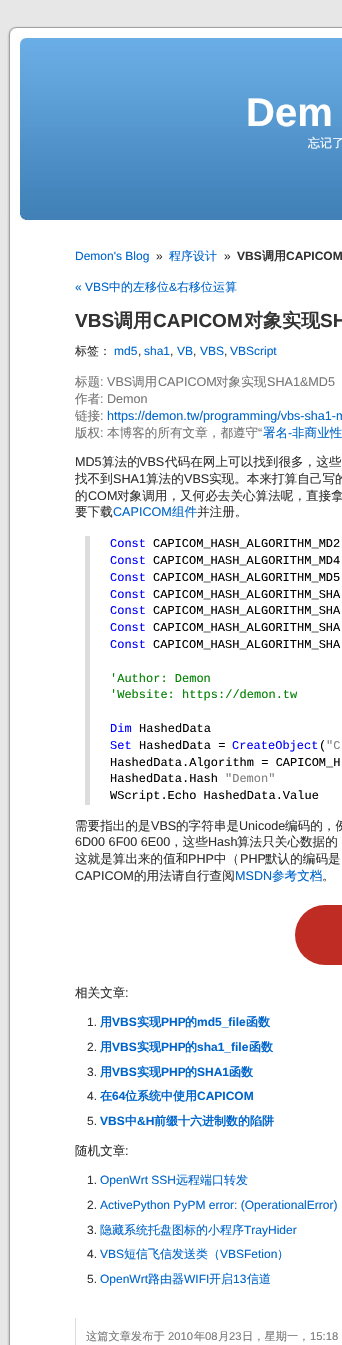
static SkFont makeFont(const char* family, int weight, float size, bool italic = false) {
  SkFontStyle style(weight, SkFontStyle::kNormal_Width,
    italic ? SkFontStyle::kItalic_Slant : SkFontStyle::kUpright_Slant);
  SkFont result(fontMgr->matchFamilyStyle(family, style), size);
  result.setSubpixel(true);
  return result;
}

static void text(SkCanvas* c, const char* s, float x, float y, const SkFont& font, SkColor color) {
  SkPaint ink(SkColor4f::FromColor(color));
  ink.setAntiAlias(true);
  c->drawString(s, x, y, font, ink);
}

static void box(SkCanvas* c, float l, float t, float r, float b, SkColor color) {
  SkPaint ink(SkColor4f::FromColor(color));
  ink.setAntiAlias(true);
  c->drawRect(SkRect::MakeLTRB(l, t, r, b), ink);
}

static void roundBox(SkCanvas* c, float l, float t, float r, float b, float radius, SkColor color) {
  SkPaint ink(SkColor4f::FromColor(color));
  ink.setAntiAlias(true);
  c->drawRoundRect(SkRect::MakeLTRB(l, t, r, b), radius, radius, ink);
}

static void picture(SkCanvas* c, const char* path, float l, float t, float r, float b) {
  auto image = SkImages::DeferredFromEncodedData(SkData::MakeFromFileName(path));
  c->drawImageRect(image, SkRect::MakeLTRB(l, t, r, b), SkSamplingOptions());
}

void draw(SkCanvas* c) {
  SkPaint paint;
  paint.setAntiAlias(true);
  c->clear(0xffe7e7e7);
  picture(c, "img_01.png", 7, 220, 342, 1345);
  picture(c, "img_02.png", 1, 20, 342, 220);
  SkFont face1 = makeFont("Liberation Sans", 700, 40);
  text(c, "Dem", 246, 126, face1, 0xffffffff);
  SkFont face2 = makeFont("WenQuanYi Zen Hei", 500, 12);
  text(c, "忘记了", 308, 147, face2, 0xffffffff);
  SkFont face3 = makeFont("Liberation Sans", 400, 12);
  text(c, "Demon's Blog", 75, 260, face3, 0xff0066cc);
  text(c, "»", 156, 260, face3, 0xff333333);
  text(c, "程序设计", 169, 260, face2, 0xff0066cc);
  text(c, "»", 224, 260, face3, 0xff333333);
  SkFont face4 = makeFont("Liberation Sans", 700, 12);
  text(c, "VBS", 237, 260, face4, 0xff333333);
  SkFont face5 = makeFont("WenQuanYi Zen Hei", 700, 12);
  text(c, "调用", 262, 260, face5, 0xff333333);
  text(c, "CAPICOM", 286, 260, face4, 0xff333333);
  text(c, "« VBS", 75, 291, face3, 0xff0066cc);
  text(c, "中的左移位", 109, 291, face2, 0xff0066cc);
  text(c, "&", 169, 291, face3, 0xff0066cc);
  text(c, "右移位运算", 177, 291, face2, 0xff0066cc);
  SkFont face6 = makeFont("Liberation Sans", 700, 19);
  text(c, "VBS", 75, 327, face6, 0xff333333);
  SkFont face7 = makeFont("WenQuanYi Zen Hei", 700, 19);
  text(c, "调用", 114, 327, face7, 0xff333333);
  text(c, "CAPICOM", 153, 327, face6, 0xff333333);
  text(c, "对象实现", 244, 327, face7, 0xff333333);
  text(c, "SH", 320, 327, face6, 0xff333333);
  text(c, "标签：", 75, 355, face2, 0xff333333);
  text(c, "md5", 114, 355, face3, 0xff0066cc);
  text(c, ",", 138, 355, face3, 0xff333333);
  text(c, "sha1", 144, 355, face3, 0xff0066cc);
  text(c, ",", 170, 355, face3, 0xff333333);
  text(c, "VB", 177, 355, face3, 0xff0066cc);
  text(c, ",", 193, 355, face3, 0xff333333);
  text(c, "VBS", 200, 355, face3, 0xff0066cc);
  text(c, ",", 224, 355, face3, 0xff333333);
  text(c, "VBScript", 230, 355, face3, 0xff0066cc);
  SkFont face8 = makeFont("WenQuanYi Zen Hei", 500, 12.6f);
  text(c, "标题", 75, 386, face8, 0xff777777);
  SkFont face9 = makeFont("Liberation Sans", 400, 12.6f);
  text(c, ": VBS", 100, 386, face9, 0xff777777);
  text(c, "调用", 132, 386, face8, 0xff777777);
  text(c, "CAPICOM", 158, 386, face9, 0xff777777);
  text(c, "对象实现", 216, 386, face8, 0xff777777);
  text(c, "SHA1&MD5", 267, 386, face9, 0xff777777);
  text(c, "作者", 75, 403, face8, 0xff777777);
  text(c, ": Demon", 100, 403, face9, 0xff777777);
  text(c, "链接", 75, 420, face8, 0xff777777);
  text(c, ":", 100, 420, face9, 0xff777777);
  text(c, "https://demon.tw/programming/vbs-sha1-m", 107, 420, face9, 0xff0066cc);
  text(c, "版权", 75, 437, face8, 0xff777777);
  text(c, ":", 100, 437, face9, 0xff777777);
  text(c, "本博客的所有文章，都遵守", 107, 437, face8, 0xff777777);
  text(c, "“", 258, 437, face9, 0xff777777);
  text(c, "署名", 263, 437, face8, 0xff0066cc);
  text(c, "-", 288, 437, face9, 0xff0066cc);
  text(c, "非商业性", 292, 437, face8, 0xff0066cc);
  text(c, "MD5", 75, 466, face9, 0xff333333);
  text(c, "算法的", 102, 466, face8, 0xff333333);
  text(c, "VBS", 139, 466, face9, 0xff333333);
  text(c, "代码在网上可以找到很多，这些", 165, 466, face8, 0xff333333);
  text(c, "找不到", 75, 483, face8, 0xff333333);
  text(c, "SHA1", 113, 483, face9, 0xff333333);
  text(c, "算法的", 146, 483, face8, 0xff333333);
  text(c, "VBS", 184, 483, face9, 0xff333333);
  text(c, "实现。本来打算自己写的", 209, 483, face8, 0xff333333);
  text(c, "的", 75, 500, face8, 0xff333333);
  text(c, "COM", 88, 500, face9, 0xff333333);
  text(c, "对象调用，又何必去关心算法呢，直接拿", 117, 500, face8, 0xff333333);
  text(c, "要下载", 75, 516, face8, 0xff333333);
  text(c, "CAPICOM", 113, 516, face9, 0xff0066cc);
  text(c, "组件", 172, 516, face8, 0xff0066cc);
  text(c, "并注册。", 197, 516, face8, 0xff333333);
  box(c, 85, 536, 90, 805, 0xffdddddd);
  SkFont face10 = makeFont("Liberation Mono", 400, 12);
  text(c, "Const", 110, 547, face10, 0xff0000ff);
  text(c, "CAPICOM_HASH_ALGORITHM_MD2", 153, 547, face10, 0xff000000);
  text(c, "Const", 110, 564, face10, 0xff0000ff);
  text(c, "CAPICOM_HASH_ALGORITHM_MD4", 153, 564, face10, 0xff000000);
  text(c, "Const", 110, 581, face10, 0xff0000ff);
  text(c, "CAPICOM_HASH_ALGORITHM_MD5", 153, 581, face10, 0xff000000);
  text(c, "Const", 110, 598, face10, 0xff0000ff);
  text(c, "CAPICOM_HASH_ALGORITHM_SHA", 153, 598, face10, 0xff000000);
  text(c, "Const", 110, 614, face10, 0xff0000ff);
  text(c, "CAPICOM_HASH_ALGORITHM_SHA", 153, 614, face10, 0xff000000);
  text(c, "Const", 110, 631, face10, 0xff0000ff);
  text(c, "CAPICOM_HASH_ALGORITHM_SHA", 153, 631, face10, 0xff000000);
  text(c, "Const", 110, 648, face10, 0xff0000ff);
  text(c, "CAPICOM_HASH_ALGORITHM_SHA", 153, 648, face10, 0xff000000);
  text(c, "'Author: Demon", 110, 682, face10, 0xff008000);
  text(c, "'Website: https://demon.tw", 110, 698, face10, 0xff008000);
  text(c, "Dim", 110, 732, face10, 0xff0000ff);
  text(c, "HashedData", 139, 732, face10, 0xff000000);
  text(c, "Set", 110, 749, face10, 0xff0000ff);
  text(c, "HashedData =", 139, 749, face10, 0xff000000);
  text(c, "CreateObject", 232, 749, face10, 0xff0000ff);
  text(c, "(", 319, 749, face10, 0xff000000);
  text(c, "\"C", 326, 749, face10, 0xff808080);
  text(c, "HashedData.Algorithm = CAPICOM_H", 110, 766, face10, 0xff000000);
  text(c, "HashedData.Hash", 110, 782, face10, 0xff000000);
  text(c, "\"Demon\"", 225, 782, face10, 0xff808080);
  text(c, "WScript.Echo HashedData.Value", 110, 799, face10, 0xff000000);
  text(c, "需要指出的是", 75, 830, face8, 0xff333333);
  text(c, "VBS", 151, 830, face9, 0xff333333);
  text(c, "的字符串是", 176, 830, face8, 0xff333333);
  text(c, "Unicode", 239, 830, face9, 0xff333333);
  text(c, "编码的，例", 285, 830, face8, 0xff333333);
  text(c, "6D00 6F00 6E00", 75, 846, face9, 0xff333333);
  text(c, "，这些", 170, 846, face8, 0xff333333);
  text(c, "Hash", 208, 846, face9, 0xff333333);
  text(c, "算法只关心数据的", 237, 846, face8, 0xff333333);
  text(c, "这就是算出来的值和", 75, 863, face8, 0xff333333);
  text(c, "PHP", 188, 863, face9, 0xff333333);
  text(c, "中（", 214, 863, face8, 0xff333333);
  text(c, "PHP", 240, 863, face9, 0xff333333);
  text(c, "默认的编码是", 265, 863, face8, 0xff333333);
  text(c, "CAPICOM", 75, 880, face9, 0xff333333);
  text(c, "的用法请自行查阅", 134, 880, face8, 0xff333333);
  text(c, "MSDN", 235, 880, face9, 0xff0066cc);
  text(c, "参考文档", 272, 880, face8, 0xff0066cc);
  text(c, "。", 322, 880, face8, 0xff333333);
  roundBox(c, 295, 905, 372, 965, 30, 0xffbf2c24);
  text(c, "相关文章", 75, 997, face8, 0xff333333);
  text(c, ":", 125, 997, face9, 0xff333333);
  text(c, "1.", 87, 1026, face3, 0xff333333);
  text(c, "用", 100, 1026, face5, 0xff0066cc);
  text(c, "VBS", 112, 1026, face4, 0xff0066cc);
  text(c, "实现", 137, 1026, face5, 0xff0066cc);
  text(c, "PHP", 161, 1026, face4, 0xff0066cc);
  text(c, "的", 185, 1026, face5, 0xff0066cc);
  text(c, "md5_file", 197, 1026, face4, 0xff0066cc);
  text(c, "函数", 246, 1026, face5, 0xff0066cc);
  text(c, "2.", 87, 1051, face3, 0xff333333);
  text(c, "用", 100, 1051, face5, 0xff0066cc);
  text(c, "VBS", 112, 1051, face4, 0xff0066cc);
  text(c, "实现", 137, 1051, face5, 0xff0066cc);
  text(c, "PHP", 161, 1051, face4, 0xff0066cc);
  text(c, "的", 185, 1051, face5, 0xff0066cc);
  text(c, "sha1_file", 197, 1051, face4, 0xff0066cc);
  text(c, "函数", 249, 1051, face5, 0xff0066cc);
  text(c, "3.", 87, 1076, face3, 0xff333333);
  text(c, "用", 100, 1076, face5, 0xff0066cc);
  text(c, "VBS", 112, 1076, face4, 0xff0066cc);
  text(c, "实现", 137, 1076, face5, 0xff0066cc);
  text(c, "PHP", 161, 1076, face4, 0xff0066cc);
  text(c, "的", 185, 1076, face5, 0xff0066cc);
  text(c, "SHA1", 197, 1076, face4, 0xff0066cc);
  text(c, "函数", 229, 1076, face5, 0xff0066cc);
  text(c, "4.", 87, 1100, face3, 0xff333333);
  text(c, "在", 100, 1100, face5, 0xff0066cc);
  text(c, "64", 112, 1100, face4, 0xff0066cc);
  text(c, "位系统中使用", 125, 1100, face5, 0xff0066cc);
  text(c, "CAPICOM", 197, 1100, face4, 0xff0066cc);
  text(c, "5.", 87, 1125, face3, 0xff333333);
  text(c, "VBS", 100, 1125, face4, 0xff0066cc);
  text(c, "中", 125, 1125, face5, 0xff0066cc);
  text(c, "&H", 137, 1125, face4, 0xff0066cc);
  text(c, "前缀十六进制数的陷阱", 154, 1125, face5, 0xff0066cc);
  text(c, "随机文章", 75, 1155, face8, 0xff333333);
  text(c, ":", 125, 1155, face9, 0xff333333);
  text(c, "1.", 87, 1184, face3, 0xff333333);
  text(c, "OpenWrt SSH", 100, 1184, face3, 0xff0066cc);
  text(c, "远程端口转发", 176, 1184, face2, 0xff0066cc);
  text(c, "2.", 87, 1209, face3, 0xff333333);
  text(c, "ActivePython PyPM error: (OperationalError)", 100, 1209, face3, 0xff0066cc);
  text(c, "3.", 87, 1234, face3, 0xff333333);
  text(c, "隐藏系统托盘图标的小程序", 100, 1234, face2, 0xff0066cc);
  text(c, "TrayHider", 244, 1234, face3, 0xff0066cc);
  text(c, "4.", 87, 1258, face3, 0xff333333);
  text(c, "VBS", 100, 1258, face3, 0xff0066cc);
  text(c, "短信飞信发送类（", 124, 1258, face2, 0xff0066cc);
  text(c, "VBSFetion", 220, 1258, face3, 0xff0066cc);
  text(c, "）", 277, 1258, face2, 0xff0066cc);
  text(c, "5.", 87, 1283, face3, 0xff333333);
  text(c, "OpenWrt", 100, 1283, face3, 0xff0066cc);
  text(c, "路由器", 148, 1283, face2, 0xff0066cc);
  text(c, "WIFI", 184, 1283, face3, 0xff0066cc);
  text(c, "开启", 209, 1283, face2, 0xff0066cc);
  text(c, "13", 233, 1283, face3, 0xff0066cc);
  text(c, "信道", 247, 1283, face2, 0xff0066cc);
  box(c, 75, 1318, 76, 1345, 0xffdddddd);
  SkFont face11 = makeFont("WenQuanYi Zen Hei", 500, 11.25f);
  text(c, "这篇文章发布于", 86, 1340, face11, 0xff777777);
  SkFont face12 = makeFont("Liberation Sans", 400, 11.25f);
  text(c, "2010", 168, 1340, face12, 0xff777777);
  text(c, "年", 194, 1340, face11, 0xff777777);
  text(c, "08", 205, 1340, face12, 0xff777777);
  text(c, "月", 218, 1340, face11, 0xff777777);
  text(c, "23", 229, 1340, face12, 0xff777777);
  text(c, "日，星期一，", 242, 1340, face11, 0xff777777);
  text(c, "15:18", 310, 1340, face12, 0xff777777);
}
